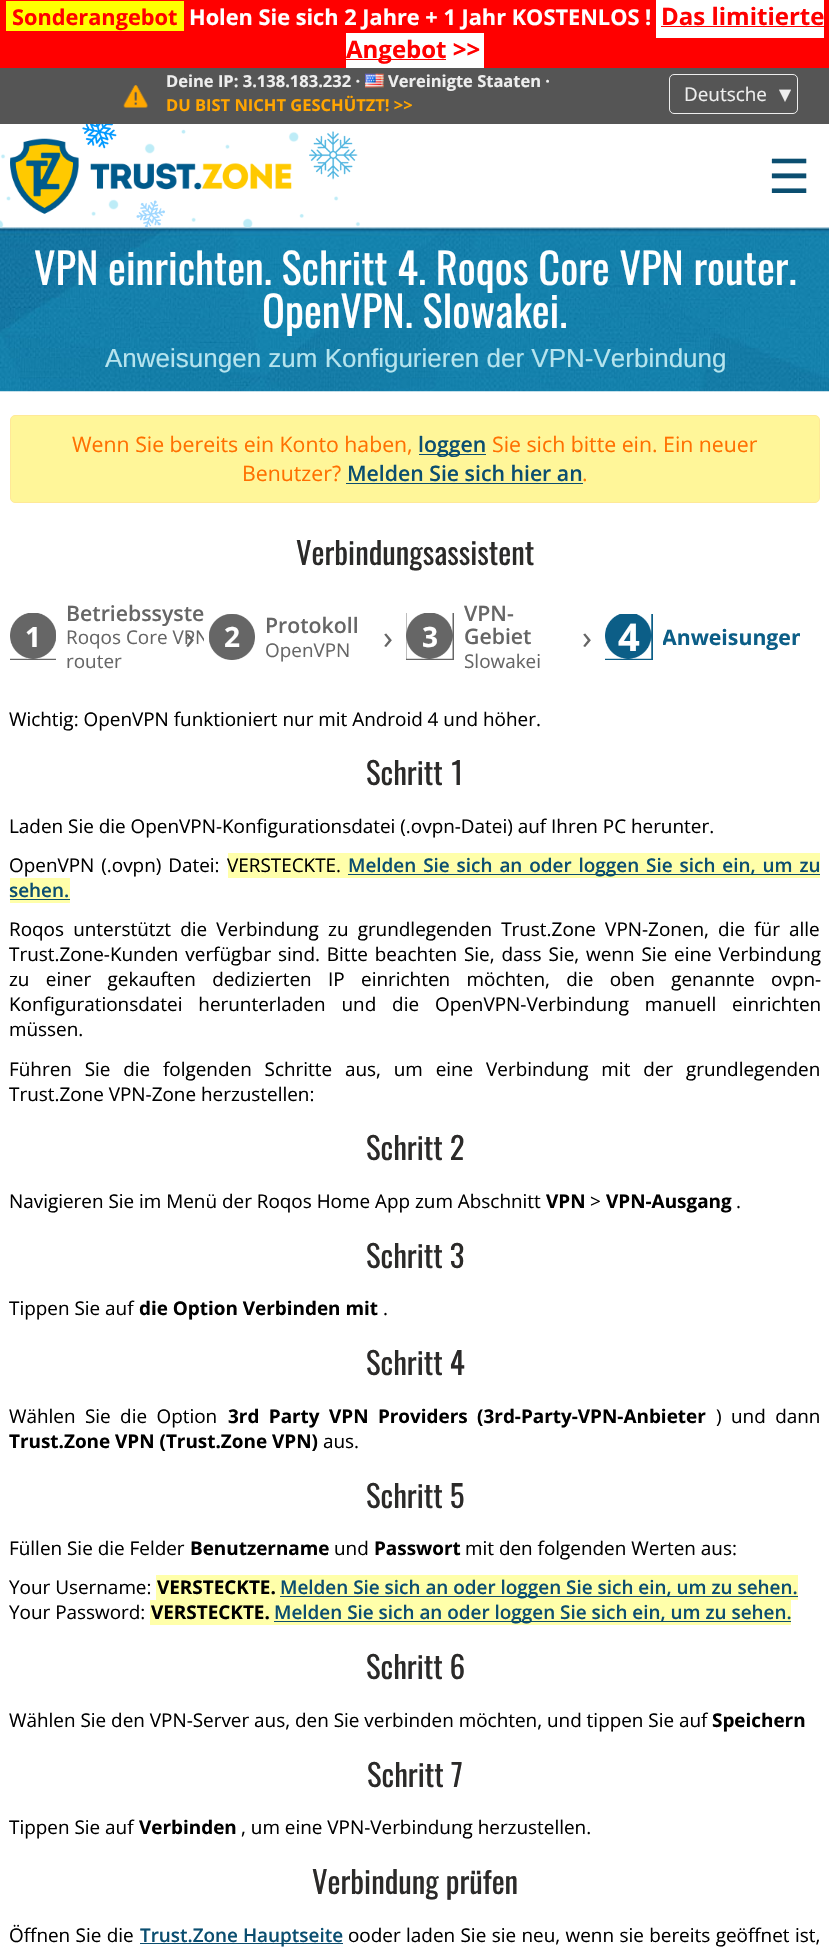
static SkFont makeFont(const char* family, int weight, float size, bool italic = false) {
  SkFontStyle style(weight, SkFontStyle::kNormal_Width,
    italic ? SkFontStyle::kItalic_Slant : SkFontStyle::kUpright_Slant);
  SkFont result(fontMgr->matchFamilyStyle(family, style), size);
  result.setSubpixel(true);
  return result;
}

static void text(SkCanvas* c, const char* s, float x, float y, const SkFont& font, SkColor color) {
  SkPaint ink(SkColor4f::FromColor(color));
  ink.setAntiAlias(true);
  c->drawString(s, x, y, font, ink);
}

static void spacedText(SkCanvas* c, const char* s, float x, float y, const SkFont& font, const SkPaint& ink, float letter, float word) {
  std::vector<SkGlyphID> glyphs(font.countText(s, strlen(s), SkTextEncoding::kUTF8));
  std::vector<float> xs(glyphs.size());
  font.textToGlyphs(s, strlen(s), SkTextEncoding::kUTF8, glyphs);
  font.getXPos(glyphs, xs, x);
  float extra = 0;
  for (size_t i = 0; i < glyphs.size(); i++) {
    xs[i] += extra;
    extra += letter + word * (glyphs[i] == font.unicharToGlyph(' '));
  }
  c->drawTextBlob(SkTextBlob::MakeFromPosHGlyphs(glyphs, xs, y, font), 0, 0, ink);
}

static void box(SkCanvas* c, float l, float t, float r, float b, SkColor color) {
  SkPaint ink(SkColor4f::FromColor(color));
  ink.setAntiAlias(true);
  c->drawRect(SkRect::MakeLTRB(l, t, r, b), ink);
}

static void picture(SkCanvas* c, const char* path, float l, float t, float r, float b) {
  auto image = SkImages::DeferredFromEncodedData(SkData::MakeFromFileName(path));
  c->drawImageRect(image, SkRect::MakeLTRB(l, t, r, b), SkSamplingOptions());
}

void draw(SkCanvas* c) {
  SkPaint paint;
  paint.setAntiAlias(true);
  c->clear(0xffffffff);
  box(c, 0, 0, 829, 68, 0xffff0000);
  box(c, 6, 1, 184, 31, 0xffffff00);
  SkFont face1 = makeFont("Open Sans", 700, 21.75f);
  text(c, "Sonderangebot", 12, 25, face1, 0xffff0000);
  text(c, "Holen Sie sich 2 Jahre + 1 Jahr KOSTENLOS !", 189, 25, face1, 0xffffffff);
  box(c, 656, 0, 824, 38, 0xffffffff);
  SkFont face2 = makeFont("Open Sans", 700, 24);
  text(c, "Das limitierte", 661, 25, face2, 0xffff0000);
  box(c, 661, 26, 824, 27, 0xffff0000);
  box(c, 346, 33, 484, 68, 0xffffffff);
  box(c, 346, 59, 446, 60, 0xffff0000);
  text(c, "Angebot >>", 346, 58, face2, 0xffff0000);
  box(c, 0, 68, 829, 124, 0xff555555);
  SkFont face3 = makeFont("Open Sans", 700, 16.5f);
  text(c, "Deine IP: 3.138.183.232 ·", 166, 87, face3, 0xffeeeeee);
  picture(c, "img_01.png", 365, 73, 384, 88);
  text(c, "Vereinigte Staaten ·", 388, 87, face3, 0xffeeeeee);
  picture(c, "img_02.png", 123, 85, 148, 108);
  text(c, "DU BIST NICHT GESCHÜTZT! >>", 166, 111, face3, 0xffffa500);
  paint.setStyle(SkPaint::kStroke_Style);
  paint.setStrokeWidth(1);
  paint.setColor(0xffeeeeee);
  c->drawRoundRect(SkRect::MakeLTRB(669.5f, 74.5f, 797.5f, 113.5f), 4.5f, 4.5f, paint);
  SkFont face4 = makeFont("Open Sans", 400, 18.9f);
  text(c, "Deutsche", 684, 101, face4, 0xffeeeeee);
  SkFont face5 = makeFont("DejaVu Sans", 400, 24);
  text(c, "▾", 779, 102, face5, 0xffeeeeee);
  picture(c, "img_05.png", 0, 227, 829, 392);
  picture(c, "img_03.png", 0, 124, 360, 228);
  picture(c, "img_04.png", 10, 138, 292, 214);
  SkFont face6 = makeFont("DejaVu Sans", 400, 47);
  text(c, "☰", 768, 193, face6, 0xff0b4e70);
  SkFont face7 = makeFont("Oswald", 400, 42.5f);
  text(c, "VPN einrichten. Schritt 4. Roqos Core VPN router.", 34, 285, face7, 0xffffffff);
  text(c, "OpenVPN. Slowakei.", 262, 328, face7, 0xffffffff);
  SkFont face8 = makeFont("Liberation Sans", 400, 26);
  text(c, "Anweisungen zum Konfigurieren der VPN-Verbindung", 105, 367, face8, 0xffb6e4ee);
  paint.setStyle(SkPaint::kFill_Style);
  paint.setColor(0xfffff699);
  c->drawRoundRect(SkRect::MakeLTRB(10.5f, 415.5f, 819.5f, 502.5f), 4.5f, 4.5f, paint);
  paint.setStyle(SkPaint::kStroke_Style);
  paint.setColor(0xffffe997);
  c->drawRoundRect(SkRect::MakeLTRB(10.5f, 415.5f, 819.5f, 502.5f), 4.5f, 4.5f, paint);
  SkFont face9 = makeFont("Open Sans", 400, 21.25f);
  text(c, "Wenn Sie bereits ein Konto haben,", 72, 452, face9, 0xffff7000);
  box(c, 419, 454, 486, 455, 0xff0b4e70);
  SkFont face10 = makeFont("Open Sans", 600, 21.25f);
  text(c, "loggen", 418, 452, face10, 0xff0b4e70);
  text(c, "Sie sich bitte ein. Ein neuer", 492, 452, face9, 0xffff7000);
  text(c, "Benutzer?", 242, 481, face9, 0xffff7000);
  text(c, "Melden Sie sich hier an", 347, 481, face10, 0xff0b4e70);
  box(c, 346, 483, 583, 484, 0xff0b4e70);
  text(c, ".", 582, 481, face9, 0xffff7000);
  SkFont face11 = makeFont("Oswald", 400, 30.75f);
  text(c, "Verbindungsassistent", 296, 565, face11, 0xff2b2a29);
  box(c, 10, 613, 56, 660, 0xff666666);
  picture(c, "img_06.png", 10, 613, 56, 659);
  SkFont face12 = makeFont("Open Sans", 700, 28);
  text(c, "1", 25, 647, face12, 0xffffffff);
  text(c, "Betriebssyste", 66, 621, face10, 0xff666666);
  c->save();
  c->clipRect(SkRect::MakeLTRB(66, 601, 204, 673));
  text(c, "Roqos Core VPN", 66, 644, face4, 0xff666666);
  c->restore();
  text(c, "router", 66, 668, face4, 0xff666666);
  SkFont face13 = makeFont("Open Sans", 400, 33);
  text(c, "›", 185, 649, face13, 0xff666666);
  box(c, 209, 614, 255, 660, 0xff666666);
  picture(c, "img_07.png", 209, 614, 255, 660);
  text(c, "2", 224, 647, face12, 0xffffffff);
  text(c, "Protokoll", 265, 633, face10, 0xff666666);
  text(c, "OpenVPN", 265, 657, face4, 0xff666666);
  text(c, "›", 383, 649, face13, 0xff666666);
  box(c, 406, 613, 454, 660, 0xff666666);
  picture(c, "img_08.png", 406, 613, 453, 659);
  text(c, "3", 422, 647, face12, 0xffffffff);
  text(c, "VPN-", 464, 621, face10, 0xff666666);
  text(c, "Gebiet", 464, 644, face10, 0xff666666);
  text(c, "Slowakei", 464, 668, face4, 0xff666666);
  text(c, "›", 582, 649, face13, 0xff666666);
  box(c, 605, 614, 653, 660, 0xff0c5e87);
  picture(c, "img_09.png", 605, 614, 652, 659);
  SkFont face14 = makeFont("Open Sans", 700, 38);
  text(c, "4", 618, 651, face14, 0xffffffff);
  c->save();
  c->clipRect(SkRect::MakeLTRB(663, 614, 800, 661));
  SkFont face15 = makeFont("Open Sans", 700, 21.25f);
  text(c, "Anweisungen", 662, 645, face15, 0xff0c5e87);
  c->restore();
  text(c, "Wichtig: OpenVPN funktioniert nur mit Android 4 und höher.", 9, 726, face4, 0xff000000);
  text(c, "Schritt 1", 366, 785, face11, 0xff2b2a29);
  text(c, "Laden Sie die OpenVPN-Konfigurationsdatei (.ovpn-Datei) auf Ihren PC herunter.", 9, 833, face4, 0xff000000);
  paint.setStyle(SkPaint::kFill_Style);
  paint.setColor(0xff000000);
  spacedText(c, "OpenVPN (.ovpn) Datei:", 9, 872, face4, paint, 0, 2);
  box(c, 228, 853, 820, 878, 0xffffffaa);
  text(c, "VERSTECKTE.", 227, 872, face4, 0xff000000);
  box(c, 348, 874, 820, 875, 0xff0b4e70);
  SkFont face16 = makeFont("Open Sans", 600, 18.9f);
  paint.setColor(0xff0b4e70);
  spacedText(c, "Melden Sie sich an oder loggen Sie sich ein, um zu", 348, 872, face16, paint, 0, 2);
  box(c, 10, 878, 70, 903, 0xffffffaa);
  text(c, "sehen.", 9, 897, face16, 0xff0b4e70);
  box(c, 10, 899, 70, 900, 0xff0b4e70);
  paint.setColor(0xff000000);
  spacedText(c, "Roqos unterstützt die Verbindung zu grundlegenden Trust.Zone VPN-Zonen, die für alle", 9, 936, face4, paint, 0, 4.25f);
  spacedText(c, "Trust.Zone-Kunden verfügbar sind. Bitte beachten Sie, dass Sie, wenn Sie eine Verbindung", 9, 961, face4, paint, 0, 2);
  spacedText(c, "zu einer gekauften dedizierten IP einrichten möchten, die oben genannte ovpn-", 9, 986, face4, paint, 0, 11.5f);
  spacedText(c, "Konfigurationsdatei herunterladen und die OpenVPN-Verbindung manuell einrichten", 9, 1011, face4, paint, 0, 11);
  text(c, "müssen.", 9, 1036, face4, 0xff000000);
  spacedText(c, "Führen Sie die folgenden Schritte aus, um eine Verbindung mit der grundlegenden", 9, 1076, face4, paint, 0, 7.9f);
  text(c, "Trust.Zone VPN-Zone herzustellen:", 9, 1101, face4, 0xff000000);
  text(c, "Schritt 2", 366, 1160, face11, 0xff2b2a29);
  text(c, "Navigieren Sie im Menü der Roqos Home App zum Abschnitt", 9, 1208, face4, 0xff000000);
  SkFont face17 = makeFont("Open Sans", 700, 18.9f);
  text(c, "VPN", 546, 1208, face17, 0xff000000);
  text(c, ">", 590, 1208, face4, 0xff000000);
  text(c, "VPN-Ausgang", 606, 1208, face17, 0xff000000);
  text(c, ".", 736, 1208, face4, 0xff000000);
  text(c, "Schritt 3", 366, 1268, face11, 0xff2b2a29);
  text(c, "Tippen Sie auf", 9, 1315, face4, 0xff000000);
  text(c, "die Option Verbinden mit", 139, 1315, face17, 0xff000000);
  text(c, ".", 383, 1315, face4, 0xff000000);
  text(c, "Schritt 4", 366, 1375, face11, 0xff2b2a29);
  spacedText(c, "Wählen Sie die Option", 9, 1423, face4, paint, 0, 4.5f);
  spacedText(c, "3rd Party VPN Providers (3rd-Party-VPN-Anbieter", 228, 1423, face17, paint, 0, 4.5f);
  spacedText(c, ") und dann", 716, 1423, face4, paint, 0, 4.5f);
  text(c, "Trust.Zone VPN (Trust.Zone VPN)", 9, 1448, face17, 0xff000000);
  text(c, "aus.", 323, 1448, face4, 0xff000000);
  text(c, "Schritt 5", 366, 1508, face11, 0xff2b2a29);
  text(c, "Füllen Sie die Felder", 9, 1555, face4, 0xff000000);
  text(c, "Benutzername", 190, 1555, face17, 0xff000000);
  text(c, "und", 334, 1555, face4, 0xff000000);
  text(c, "Passwort", 374, 1555, face17, 0xff000000);
  text(c, "mit den folgenden Werten aus:", 465, 1555, face4, 0xff000000);
  text(c, "Your Username:", 9, 1594, face4, 0xff000000);
  box(c, 156, 1575, 798, 1600, 0xffffffaa);
  text(c, "VERSTECKTE.", 157, 1594, face17, 0xff000000);
  box(c, 280, 1596, 798, 1597, 0xff0b4e70);
  text(c, "Melden Sie sich an oder loggen Sie sich ein, um zu sehen.", 280, 1594, face16, 0xff0b4e70);
  text(c, "Your Password:", 9, 1619, face4, 0xff000000);
  box(c, 150, 1600, 791, 1625, 0xffffffaa);
  text(c, "VERSTECKTE.", 151, 1619, face17, 0xff000000);
  box(c, 274, 1621, 791, 1622, 0xff0b4e70);
  text(c, "Melden Sie sich an oder loggen Sie sich ein, um zu sehen.", 274, 1619, face16, 0xff0b4e70);
  text(c, "Schritt 6", 366, 1679, face11, 0xff2b2a29);
  text(c, "Wählen Sie den VPN-Server aus, den Sie verbinden möchten, und tippen Sie auf", 9, 1727, face4, 0xff000000);
  text(c, "Speichern", 712, 1727, face17, 0xff000000);
  text(c, "Schritt 7", 367, 1787, face11, 0xff2b2a29);
  text(c, "Tippen Sie auf", 9, 1834, face4, 0xff000000);
  text(c, "Verbinden", 139, 1834, face17, 0xff000000);
  text(c, ", um eine VPN-Verbindung herzustellen.", 241, 1834, face4, 0xff000000);
  text(c, "Verbindung prüfen", 312, 1894, face11, 0xff2b2a29);
  spacedText(c, "Öffnen Sie die", 9, 1942, face4, paint, 0, 0.5f);
  box(c, 140, 1943, 343, 1944, 0xff0b4e70);
  text(c, "Trust.Zone Hauptseite", 140, 1942, face16, 0xff0b4e70);
  spacedText(c, "ooder laden Sie sie neu, wenn sie bereits geöffnet ist,", 348, 1942, face4, paint, 0, 0.5f);
}
